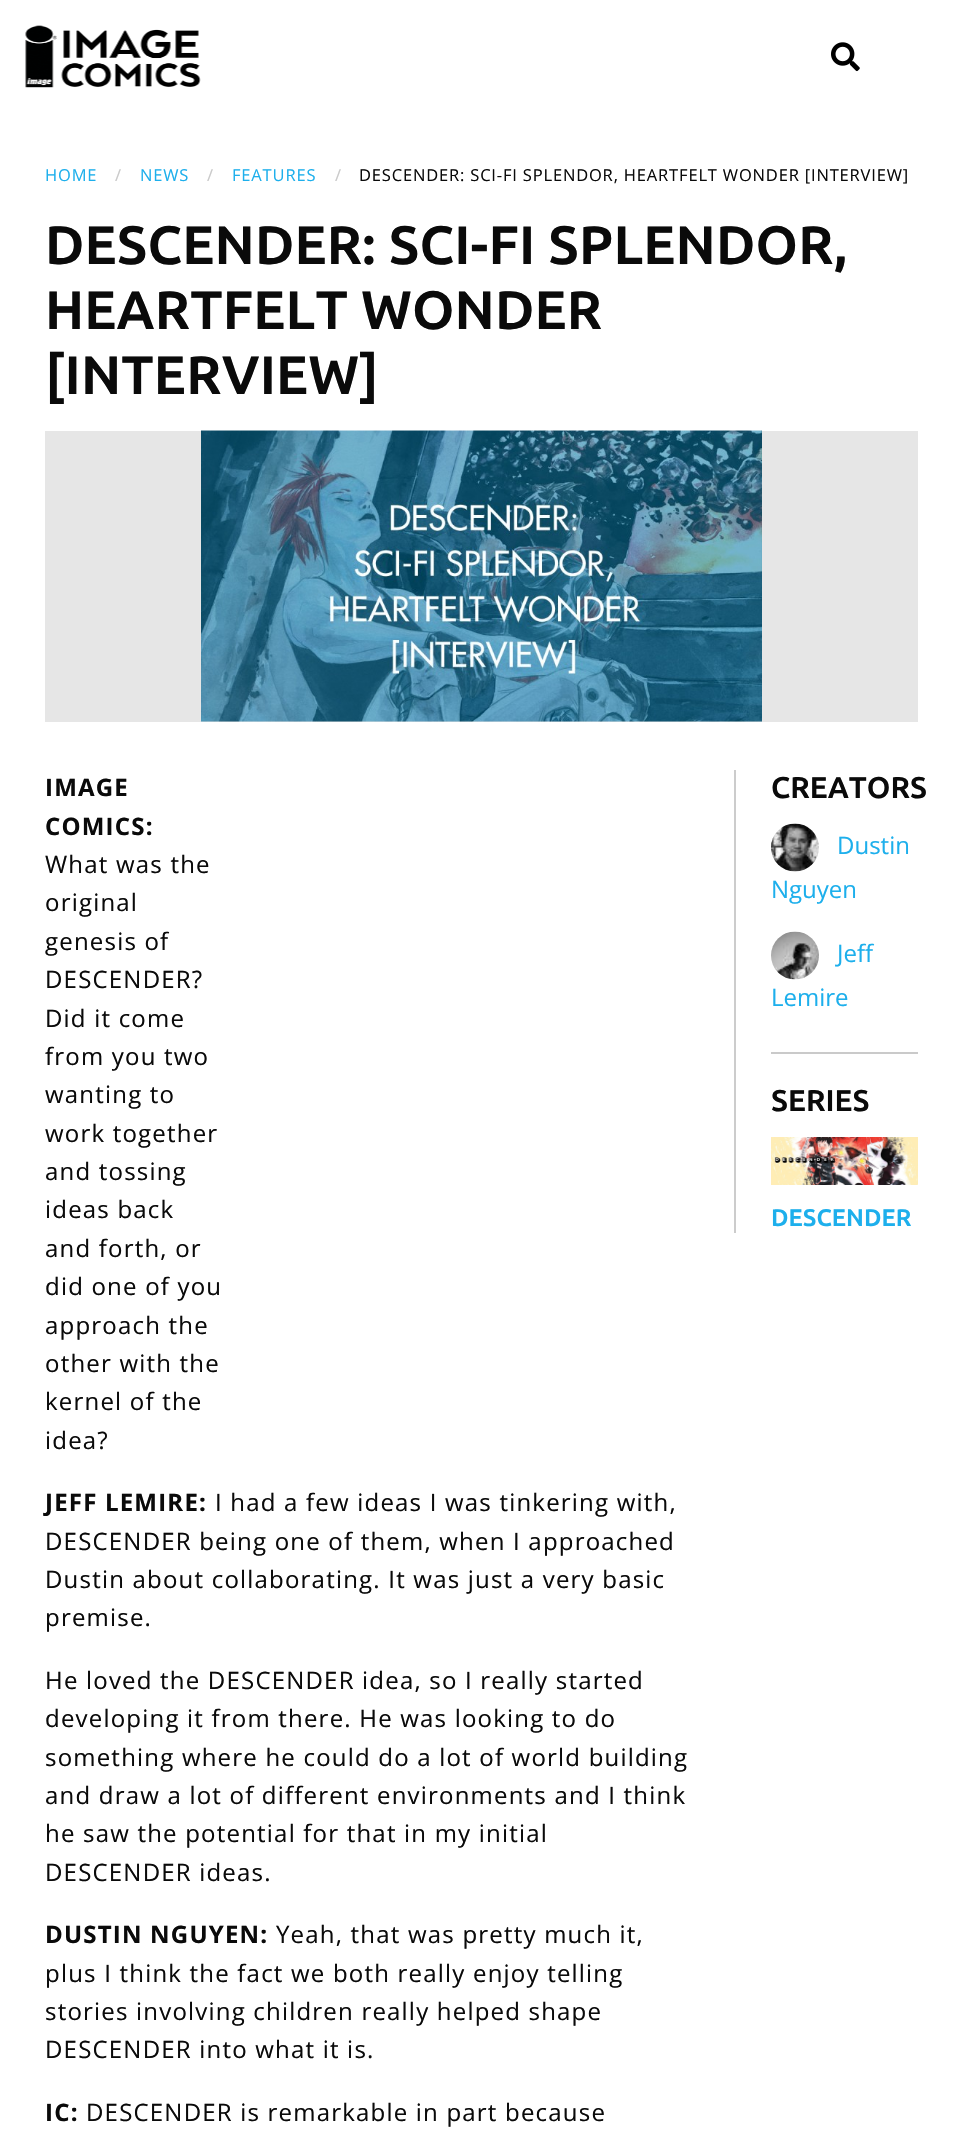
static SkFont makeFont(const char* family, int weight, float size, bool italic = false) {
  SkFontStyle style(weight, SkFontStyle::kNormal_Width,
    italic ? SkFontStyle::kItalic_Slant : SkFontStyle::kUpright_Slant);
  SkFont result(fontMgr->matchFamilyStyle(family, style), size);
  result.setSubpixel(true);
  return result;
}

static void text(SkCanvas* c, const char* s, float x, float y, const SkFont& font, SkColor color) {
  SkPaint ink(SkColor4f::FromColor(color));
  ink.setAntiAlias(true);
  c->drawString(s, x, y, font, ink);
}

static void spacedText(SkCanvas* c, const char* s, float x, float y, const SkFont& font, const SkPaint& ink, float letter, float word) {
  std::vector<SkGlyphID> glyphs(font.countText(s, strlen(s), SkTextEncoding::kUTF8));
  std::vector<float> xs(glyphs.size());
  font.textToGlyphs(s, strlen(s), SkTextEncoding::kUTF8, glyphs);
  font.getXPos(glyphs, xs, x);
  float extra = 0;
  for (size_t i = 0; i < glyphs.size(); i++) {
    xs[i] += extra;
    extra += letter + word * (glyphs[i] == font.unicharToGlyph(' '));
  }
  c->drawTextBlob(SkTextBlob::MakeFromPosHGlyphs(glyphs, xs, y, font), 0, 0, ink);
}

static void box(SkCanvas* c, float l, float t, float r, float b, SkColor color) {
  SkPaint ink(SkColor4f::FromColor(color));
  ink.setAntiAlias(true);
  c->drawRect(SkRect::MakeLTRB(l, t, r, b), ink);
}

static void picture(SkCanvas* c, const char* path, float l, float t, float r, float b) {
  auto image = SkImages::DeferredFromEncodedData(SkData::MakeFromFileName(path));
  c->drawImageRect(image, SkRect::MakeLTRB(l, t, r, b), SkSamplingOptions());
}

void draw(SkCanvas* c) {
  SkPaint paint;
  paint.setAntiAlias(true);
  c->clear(0xffffffff);
  picture(c, "img_01.png", 25, 25, 201, 88);
  picture(c, "img_02.png", 831, 42, 860, 72);
  SkFont face1 = makeFont("Open Sans", 400, 16.5f);
  paint.setColor(0xff1dafec);
  spacedText(c, "HOME", 45, 181, face1, paint, 0.83f, 0);
  paint.setColor(0xffcacaca);
  spacedText(c, "/", 115, 181, face1, paint, 0.83f, 0);
  paint.setColor(0xff1dafec);
  spacedText(c, "NEWS", 140, 181, face1, paint, 0.83f, 0);
  paint.setColor(0xffcacaca);
  spacedText(c, "/", 207, 181, face1, paint, 0.83f, 0);
  paint.setColor(0xff1dafec);
  spacedText(c, "FEATURES", 232, 181, face1, paint, 0.83f, 0);
  paint.setColor(0xffcacaca);
  spacedText(c, "/", 335, 181, face1, paint, 0.83f, 0);
  paint.setColor(0xff0a0a0a);
  spacedText(c, "DESCENDER: SCI-FI SPLENDOR, HEARTFELT WONDER [INTERVIEW]", 359, 181, face1, paint, 0.83f, 0);
  SkFont face2 = makeFont("Ubuntu", 700, 54);
  spacedText(c, "DESCENDER: SCI-FI SPLENDOR,", 45, 264, face2, paint, 0.15f, 0);
  spacedText(c, "HEARTFELT WONDER", 45, 329, face2, paint, 0.15f, 0);
  spacedText(c, "[INTERVIEW]", 45, 394, face2, paint, 0.15f, 0);
  box(c, 45, 431, 918, 722, 0xffe6e6e6);
  picture(c, "img_03.png", 201, 430, 762, 722);
  SkFont face3 = makeFont("Open Sans", 700, 24);
  spacedText(c, "IMAGE", 45, 796, face3, paint, 1.2f, 0);
  spacedText(c, "COMICS:", 45, 835, face3, paint, 1.2f, 0);
  SkFont face4 = makeFont("Open Sans", 400, 24);
  spacedText(c, "What was the", 45, 873, face4, paint, 1.2f, 0);
  spacedText(c, "original", 45, 911, face4, paint, 1.2f, 0);
  spacedText(c, "genesis of", 45, 950, face4, paint, 1.2f, 0);
  spacedText(c, "DESCENDER?", 45, 988, face4, paint, 1.2f, 0);
  spacedText(c, "Did it come", 45, 1027, face4, paint, 1.2f, 0);
  spacedText(c, "from you two", 45, 1065, face4, paint, 1.2f, 0);
  spacedText(c, "wanting to", 45, 1103, face4, paint, 1.2f, 0);
  spacedText(c, "work together", 45, 1142, face4, paint, 1.2f, 0);
  spacedText(c, "and tossing", 45, 1180, face4, paint, 1.2f, 0);
  spacedText(c, "ideas back", 45, 1218, face4, paint, 1.2f, 0);
  spacedText(c, "and forth, or", 45, 1257, face4, paint, 1.2f, 0);
  spacedText(c, "did one of you", 45, 1295, face4, paint, 1.2f, 0);
  spacedText(c, "approach the", 45, 1334, face4, paint, 1.2f, 0);
  spacedText(c, "other with the", 45, 1372, face4, paint, 1.2f, 0);
  spacedText(c, "kernel of the", 45, 1410, face4, paint, 1.2f, 0);
  spacedText(c, "idea?", 45, 1449, face4, paint, 1.2f, 0);
  spacedText(c, "JEFF LEMIRE:", 45, 1511, face3, paint, 1.2f, 0);
  spacedText(c, "I had a few ideas I was tinkering with,", 215, 1511, face4, paint, 1.2f, 0);
  spacedText(c, "DESCENDER being one of them, when I approached", 45, 1550, face4, paint, 1.2f, 0);
  spacedText(c, "Dustin about collaborating. It was just a very basic", 45, 1588, face4, paint, 1.2f, 0);
  spacedText(c, "premise.", 45, 1626, face4, paint, 1.2f, 0);
  spacedText(c, "He loved the DESCENDER idea, so I really started", 45, 1689, face4, paint, 1.2f, 0);
  spacedText(c, "developing it from there. He was looking to do", 45, 1727, face4, paint, 1.2f, 0);
  spacedText(c, "something where he could do a lot of world building", 45, 1766, face4, paint, 1.2f, 0);
  spacedText(c, "and draw a lot of different environments and I think", 45, 1804, face4, paint, 1.2f, 0);
  spacedText(c, "he saw the potential for that in my initial", 45, 1842, face4, paint, 1.2f, 0);
  spacedText(c, "DESCENDER ideas.", 45, 1881, face4, paint, 1.2f, 0);
  spacedText(c, "DUSTIN NGUYEN:", 45, 1943, face3, paint, 1.2f, 0);
  spacedText(c, "Yeah, that was pretty much it,", 276, 1943, face4, paint, 1.2f, 0);
  spacedText(c, "plus I think the fact we both really enjoy telling", 45, 1982, face4, paint, 1.2f, 0);
  spacedText(c, "stories involving children really helped shape", 45, 2020, face4, paint, 1.2f, 0);
  spacedText(c, "DESCENDER into what it is.", 45, 2058, face4, paint, 1.2f, 0);
  spacedText(c, "IC:", 45, 2121, face3, paint, 1.2f, 0);
  spacedText(c, "DESCENDER is remarkable in part because", 86, 2121, face4, paint, 1.2f, 0);
  box(c, 734, 770, 736, 1233, 0xffcccccc);
  SkFont face5 = makeFont("Ubuntu", 700, 30);
  text(c, "CREATORS", 771, 798, face5, 0xff0a0a0a);
  picture(c, "img_04.png", 771, 823, 819, 872);
  text(c, "Dustin", 837, 854, face4, 0xff1dafec);
  text(c, "Nguyen", 771, 898, face4, 0xff1dafec);
  picture(c, "img_05.png", 771, 931, 819, 980);
  text(c, "Jeff", 837, 962, face4, 0xff1dafec);
  text(c, "Lemire", 771, 1006, face4, 0xff1dafec);
  box(c, 771, 1052, 918, 1054, 0xffcacaca);
  text(c, "SERIES", 771, 1111, face5, 0xff0a0a0a);
  picture(c, "img_06.png", 771, 1137, 918, 1185);
  SkFont face6 = makeFont("Ubuntu", 700, 24);
  text(c, "DESCENDER", 771, 1226, face6, 0xff1dafec);
}
